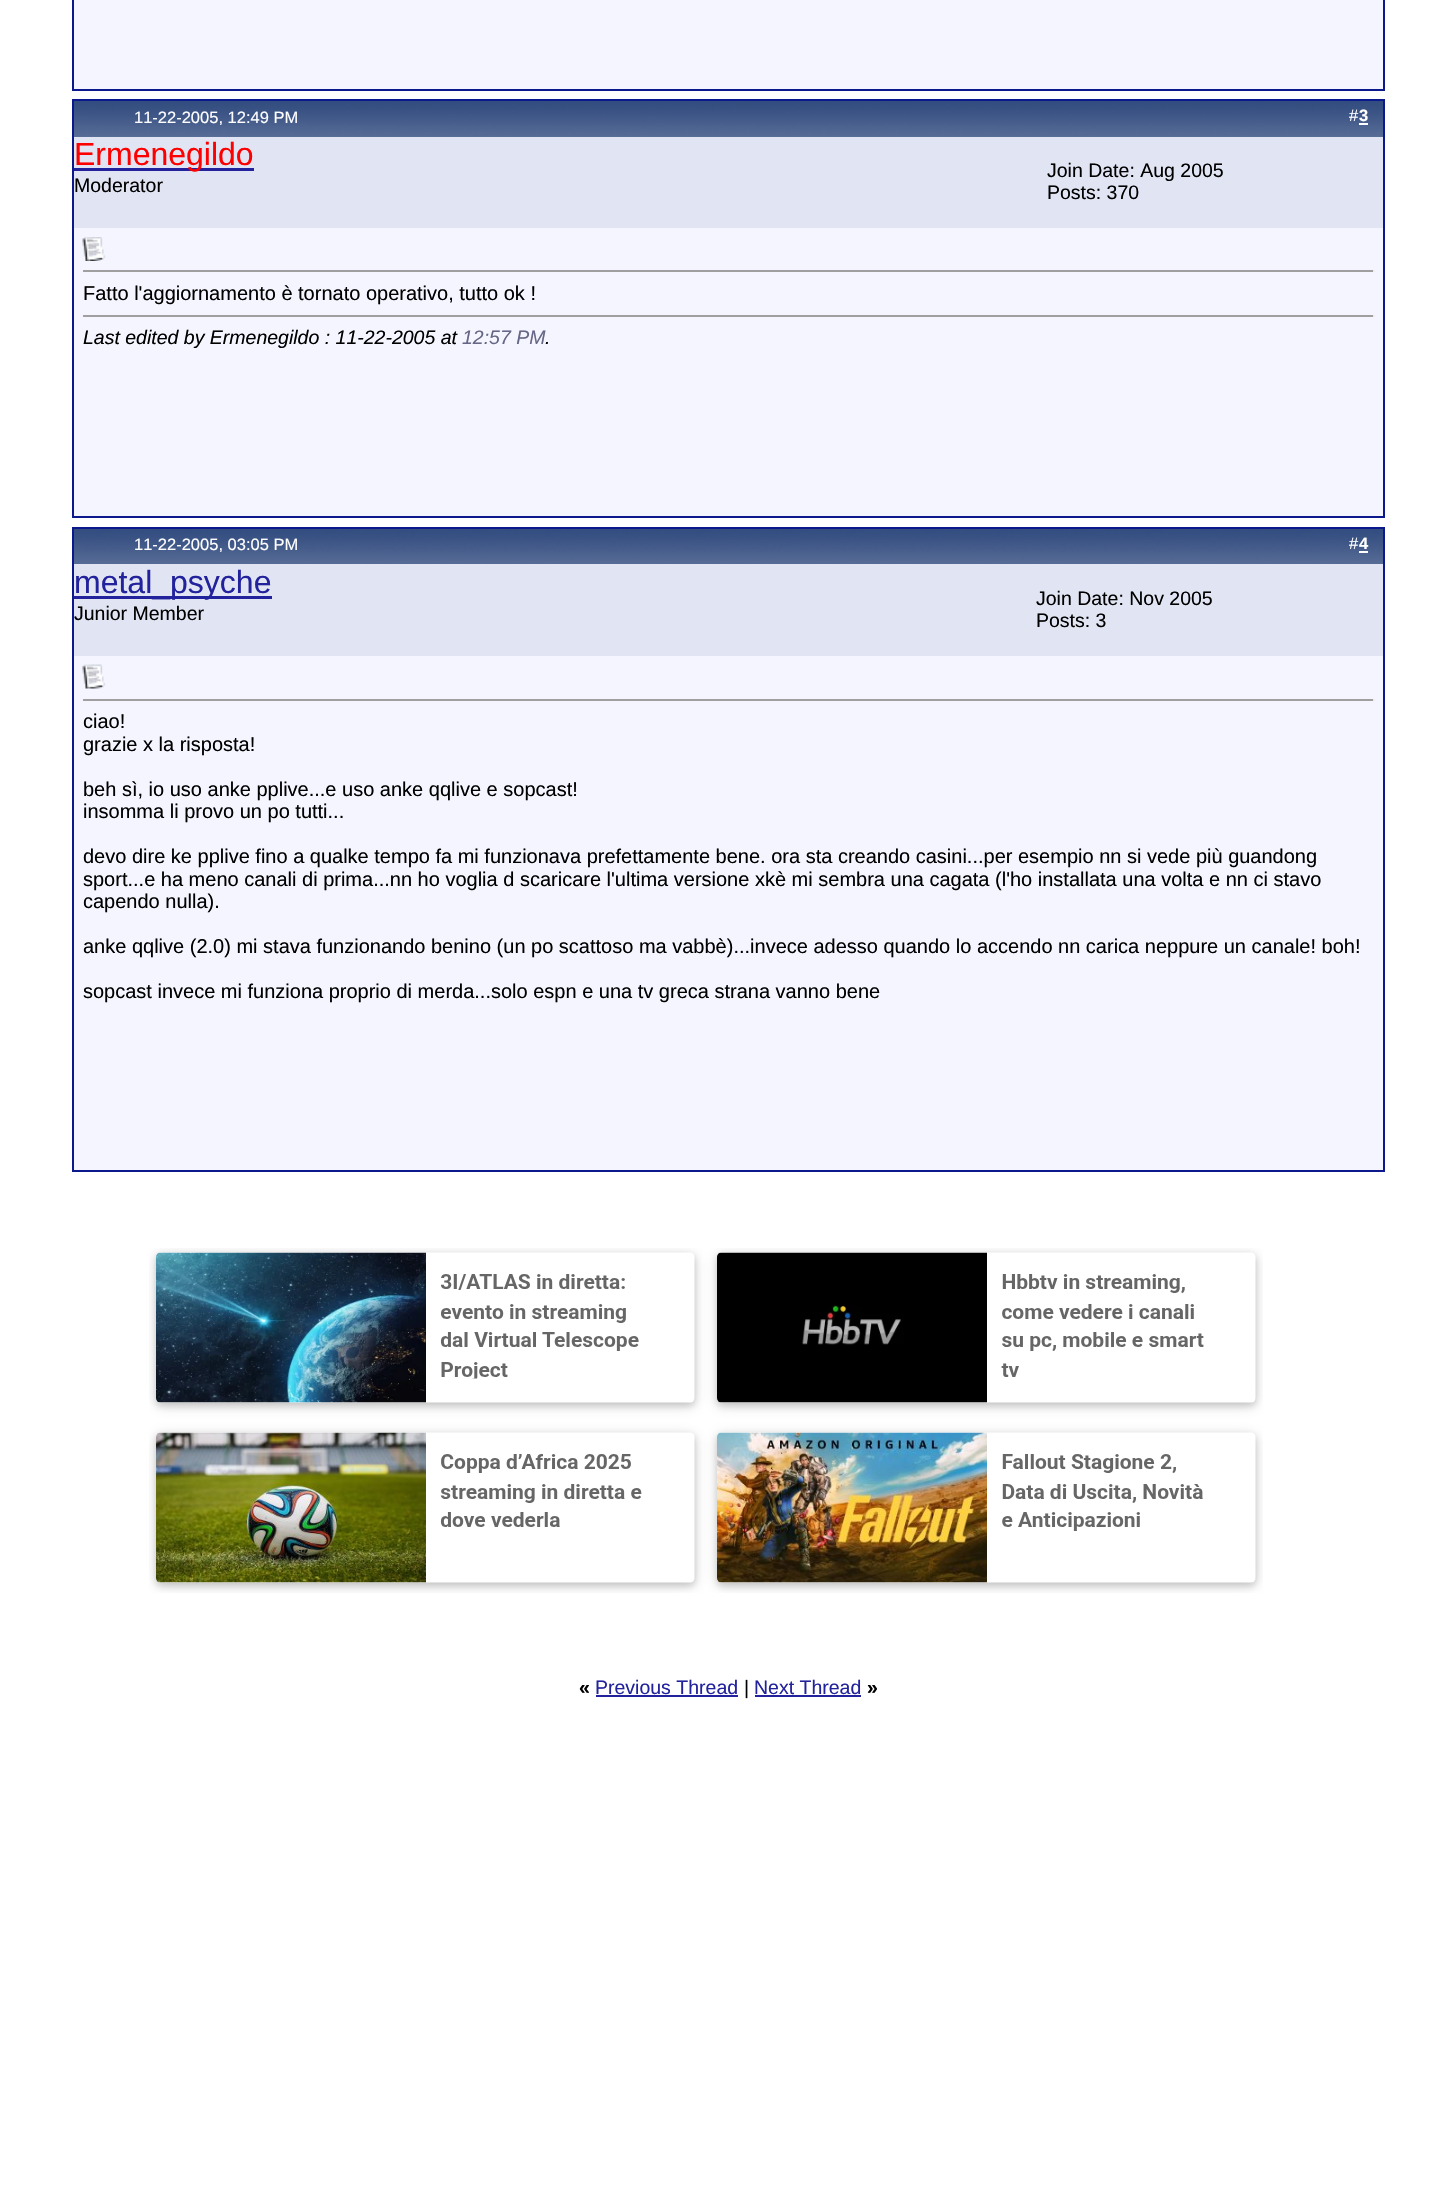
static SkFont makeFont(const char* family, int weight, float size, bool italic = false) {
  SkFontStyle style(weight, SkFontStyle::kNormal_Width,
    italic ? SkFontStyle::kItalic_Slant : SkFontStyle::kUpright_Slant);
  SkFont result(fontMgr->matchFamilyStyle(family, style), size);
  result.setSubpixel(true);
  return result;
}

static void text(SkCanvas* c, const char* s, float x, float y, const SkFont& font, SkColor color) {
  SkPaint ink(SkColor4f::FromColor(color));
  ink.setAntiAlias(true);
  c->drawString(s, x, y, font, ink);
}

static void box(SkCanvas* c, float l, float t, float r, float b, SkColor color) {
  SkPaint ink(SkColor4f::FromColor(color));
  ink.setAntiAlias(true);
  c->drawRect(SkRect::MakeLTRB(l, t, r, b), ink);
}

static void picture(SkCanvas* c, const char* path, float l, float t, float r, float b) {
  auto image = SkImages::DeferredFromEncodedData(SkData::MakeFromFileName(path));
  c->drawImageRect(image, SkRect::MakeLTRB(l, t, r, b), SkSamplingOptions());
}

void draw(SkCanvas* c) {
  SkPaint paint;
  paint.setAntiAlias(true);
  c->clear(0xffffffff);
  box(c, 1383, 0, 1385, 90, 0xff0b198c);
  box(c, 72, 89, 1385, 91, 0xff0b198c);
  box(c, 72, 0, 74, 90, 0xff0b198c);
  box(c, 74, 0, 1383, 89, 0xfff5f5ff);
  box(c, 72, 99, 1385, 101, 0xff0b198c);
  box(c, 1383, 99, 1385, 518, 0xff0b198c);
  box(c, 72, 516, 1385, 518, 0xff0b198c);
  box(c, 72, 99, 74, 518, 0xff0b198c);
  box(c, 74, 136, 1383, 137, 0xff5c7099);
  picture(c, "img_01.png", 74, 101, 1383, 137);
  SkFont face1 = makeFont("Liberation Sans", 400, 16.5f);
  text(c, "11-22-2005, 12:49 PM", 134, 123, face1, 0xffffffff);
  text(c, "#", 1349, 121, face1, 0xffffffff);
  SkFont face2 = makeFont("Liberation Sans", 700, 16.5f);
  text(c, "3", 1359, 121, face2, 0xffffffff);
  box(c, 1359, 123, 1368, 125, 0xffffffff);
  box(c, 74, 137, 1383, 228, 0xffe1e4f2);
  box(c, 74, 168, 254, 171, 0xff22229c);
  SkFont face3 = makeFont("Liberation Sans", 400, 32);
  text(c, "Ermenegildo", 74, 165, face3, 0xffff0000);
  SkFont face4 = makeFont("Liberation Sans", 400, 19.5f);
  text(c, "Moderator", 74, 192, face4, 0xff000000);
  text(c, "Join Date: Aug 2005", 1047, 177, face4, 0xff000000);
  text(c, "Posts: 370", 1047, 199, face4, 0xff000000);
  box(c, 74, 228, 1383, 516, 0xfff5f5ff);
  picture(c, "img_02.png", 82, 237, 106, 261);
  box(c, 83, 270, 1374, 272, 0xff9f9f9f);
  box(c, 1373, 270, 1375, 272, 0xffeeeeee);
  SkFont face5 = makeFont("Liberation Sans", 400, 20);
  text(c, "Fatto l'aggiornamento è tornato operativo, tutto ok !", 83, 300, face5, 0xff000000);
  box(c, 83, 315, 1374, 317, 0xff9f9f9f);
  box(c, 1373, 315, 1375, 317, 0xffeeeeee);
  SkFont face6 = makeFont("Liberation Sans", 400, 19.5f, true);
  text(c, "Last edited by Ermenegildo : 11-22-2005 at", 83, 344, face6, 0xff000000);
  text(c, "12:57 PM", 462, 344, face6, 0xff666686);
  text(c, ".", 545, 344, face6, 0xff000000);
  box(c, 72, 527, 1385, 529, 0xff0b198c);
  box(c, 1383, 527, 1385, 1172, 0xff0b198c);
  box(c, 72, 1170, 1385, 1172, 0xff0b198c);
  box(c, 72, 527, 74, 1172, 0xff0b198c);
  picture(c, "img_03.png", 74, 529, 1383, 564);
  text(c, "11-22-2005, 03:05 PM", 134, 550, face1, 0xffffffff);
  text(c, "#", 1349, 549, face1, 0xffffffff);
  text(c, "4", 1359, 549, face2, 0xffffffff);
  box(c, 1359, 551, 1368, 553, 0xffffffff);
  box(c, 74, 564, 1383, 656, 0xffe1e4f2);
  box(c, 74, 596, 272, 599, 0xff22229c);
  text(c, "metal_psyche", 74, 593, face3, 0xff22229c);
  text(c, "Junior Member", 74, 620, face4, 0xff000000);
  text(c, "Join Date: Nov 2005", 1036, 605, face4, 0xff000000);
  text(c, "Posts: 3", 1036, 627, face4, 0xff000000);
  box(c, 74, 656, 1383, 1170, 0xfff5f5ff);
  picture(c, "img_04.png", 82, 664, 106, 689);
  box(c, 83, 699, 1374, 701, 0xff9f9f9f);
  box(c, 1373, 699, 1375, 701, 0xffeeeeee);
  text(c, "ciao!", 83, 728, face5, 0xff000000);
  text(c, "grazie x la risposta!", 83, 751, face5, 0xff000000);
  text(c, "beh sì, io uso anke pplive...e uso anke qqlive e sopcast!", 83, 796, face5, 0xff000000);
  text(c, "insomma li provo un po tutti...", 83, 818, face5, 0xff000000);
  text(c, "devo dire ke pplive fino a qualke tempo fa mi funzionava prefettamente bene. ora sta creando casini...per esempio nn si vede più guandong", 83, 863, face5, 0xff000000);
  text(c, "sport...e ha meno canali di prima...nn ho voglia d scaricare l'ultima versione xkè mi sembra una cagata (l'ho installata una volta e nn ci stavo", 83, 886, face5, 0xff000000);
  text(c, "capendo nulla).", 83, 908, face5, 0xff000000);
  text(c, "anke qqlive (2.0) mi stava funzionando benino (un po scattoso ma vabbè)...invece adesso quando lo accendo nn carica neppure un canale! boh!", 83, 953, face5, 0xff000000);
  text(c, "sopcast invece mi funziona proprio di merda...solo espn e una tv greca strana vanno bene", 83, 998, face5, 0xff000000);
  picture(c, "img_05.png", 149, 1248, 1263, 1593);
  SkFont face7 = makeFont("Liberation Sans", 700, 19.5f);
  text(c, "«", 579, 1694, face7, 0xff000000);
  text(c, "Previous Thread", 595, 1694, face4, 0xff22229c);
  box(c, 596, 1695, 738, 1697, 0xff22229c);
  text(c, "|", 744, 1694, face4, 0xff000000);
  text(c, "Next Thread", 754, 1694, face4, 0xff22229c);
  box(c, 755, 1695, 861, 1697, 0xff22229c);
  text(c, "»", 867, 1694, face7, 0xff000000);
}
